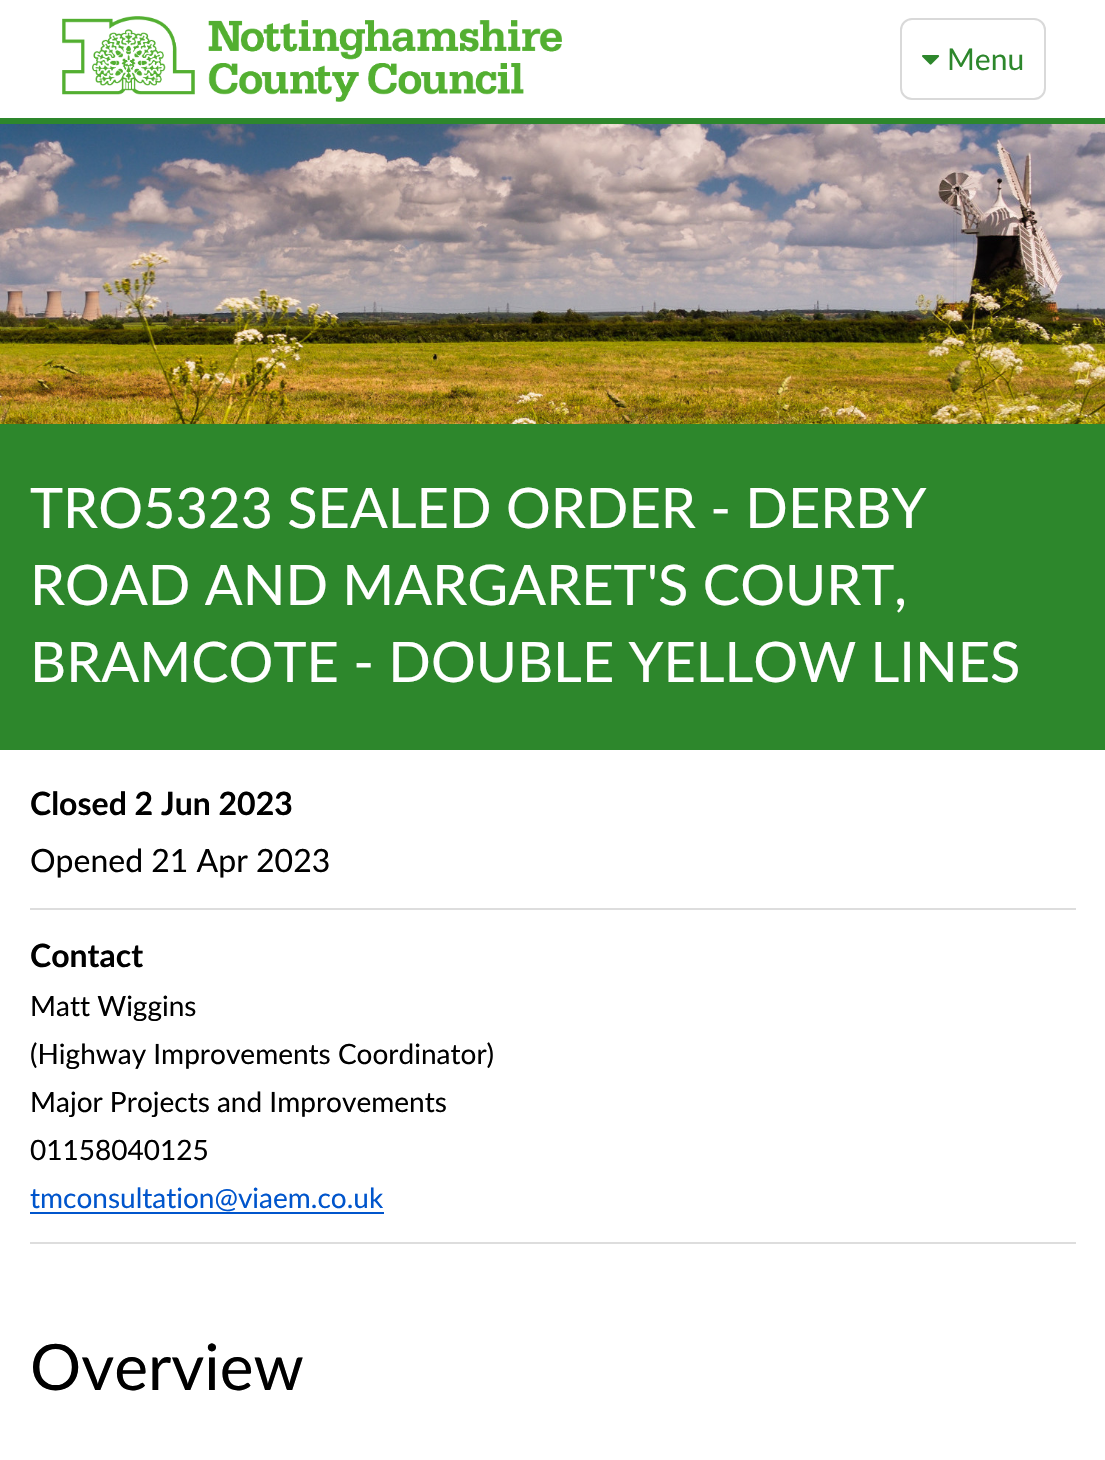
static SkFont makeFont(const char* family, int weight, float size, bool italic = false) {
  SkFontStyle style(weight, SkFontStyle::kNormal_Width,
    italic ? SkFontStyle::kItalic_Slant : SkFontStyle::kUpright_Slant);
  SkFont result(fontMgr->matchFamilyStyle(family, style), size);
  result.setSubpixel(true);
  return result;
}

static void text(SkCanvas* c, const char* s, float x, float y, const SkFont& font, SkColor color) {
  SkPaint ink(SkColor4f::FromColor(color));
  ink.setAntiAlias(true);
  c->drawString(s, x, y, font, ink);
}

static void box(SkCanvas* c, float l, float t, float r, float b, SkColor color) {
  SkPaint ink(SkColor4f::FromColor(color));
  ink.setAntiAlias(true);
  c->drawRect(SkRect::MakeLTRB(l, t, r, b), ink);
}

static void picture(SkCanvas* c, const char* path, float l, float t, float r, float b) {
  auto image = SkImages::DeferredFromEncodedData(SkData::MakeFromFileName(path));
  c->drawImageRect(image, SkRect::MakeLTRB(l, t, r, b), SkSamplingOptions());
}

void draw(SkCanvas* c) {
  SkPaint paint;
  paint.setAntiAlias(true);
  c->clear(0xffffffff);
  box(c, 0, 118, 1105, 124, 0xff2d872c);
  picture(c, "img_01.png", 62, 16, 562, 102);
  paint.setStyle(SkPaint::kStroke_Style);
  paint.setStrokeWidth(2);
  paint.setColor(0xffd9d9d9);
  c->drawRoundRect(SkRect::MakeLTRB(901, 19, 1045, 99), 11, 11, paint);
  picture(c, "img_02.png", 922, 55, 940, 65);
  SkFont face1 = makeFont("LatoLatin", 400, 30);
  text(c, "Menu", 947, 70, face1, 0xff2d872c);
  picture(c, "img_03.png", 0, 124, 1105, 424);
  box(c, 0, 424, 1105, 750, 0xff2d872c);
  SkFont face2 = makeFont("LatoLatin", 400, 56);
  text(c, "TRO5323 SEALED ORDER - DERBY", 30, 528, face2, 0xffffffff);
  text(c, "ROAD AND MARGARET'S COURT,", 30, 605, face2, 0xffffffff);
  text(c, "BRAMCOTE - DOUBLE YELLOW LINES", 30, 682, face2, 0xffffffff);
  box(c, 30, 908, 1076, 910, 0xffdddddd);
  SkFont face3 = makeFont("LatoLatin", 700, 32);
  text(c, "Closed 2 Jun 2023", 30, 815, face3, 0xff000000);
  SkFont face4 = makeFont("LatoLatin", 400, 32);
  text(c, "Opened 21 Apr 2023", 30, 872, face4, 0xff000000);
  box(c, 30, 1242, 1076, 1244, 0xffdddddd);
  text(c, "Contact", 30, 967, face3, 0xff000000);
  SkFont face5 = makeFont("LatoLatin", 400, 28);
  text(c, "Matt Wiggins", 30, 1016, face5, 0xff000000);
  text(c, "(Highway Improvements Coordinator)", 30, 1064, face5, 0xff000000);
  text(c, "Major Projects and Improvements", 30, 1112, face5, 0xff000000);
  text(c, "01158040125", 30, 1160, face5, 0xff000000);
  text(c, "tmconsultation@viaem.co.uk", 30, 1208, face5, 0xff0055cc);
  box(c, 30, 1212, 384, 1214, 0xff0055cc);
  SkFont face6 = makeFont("LatoLatin", 400, 64);
  text(c, "Overview", 30, 1390, face6, 0xff000000);
}
